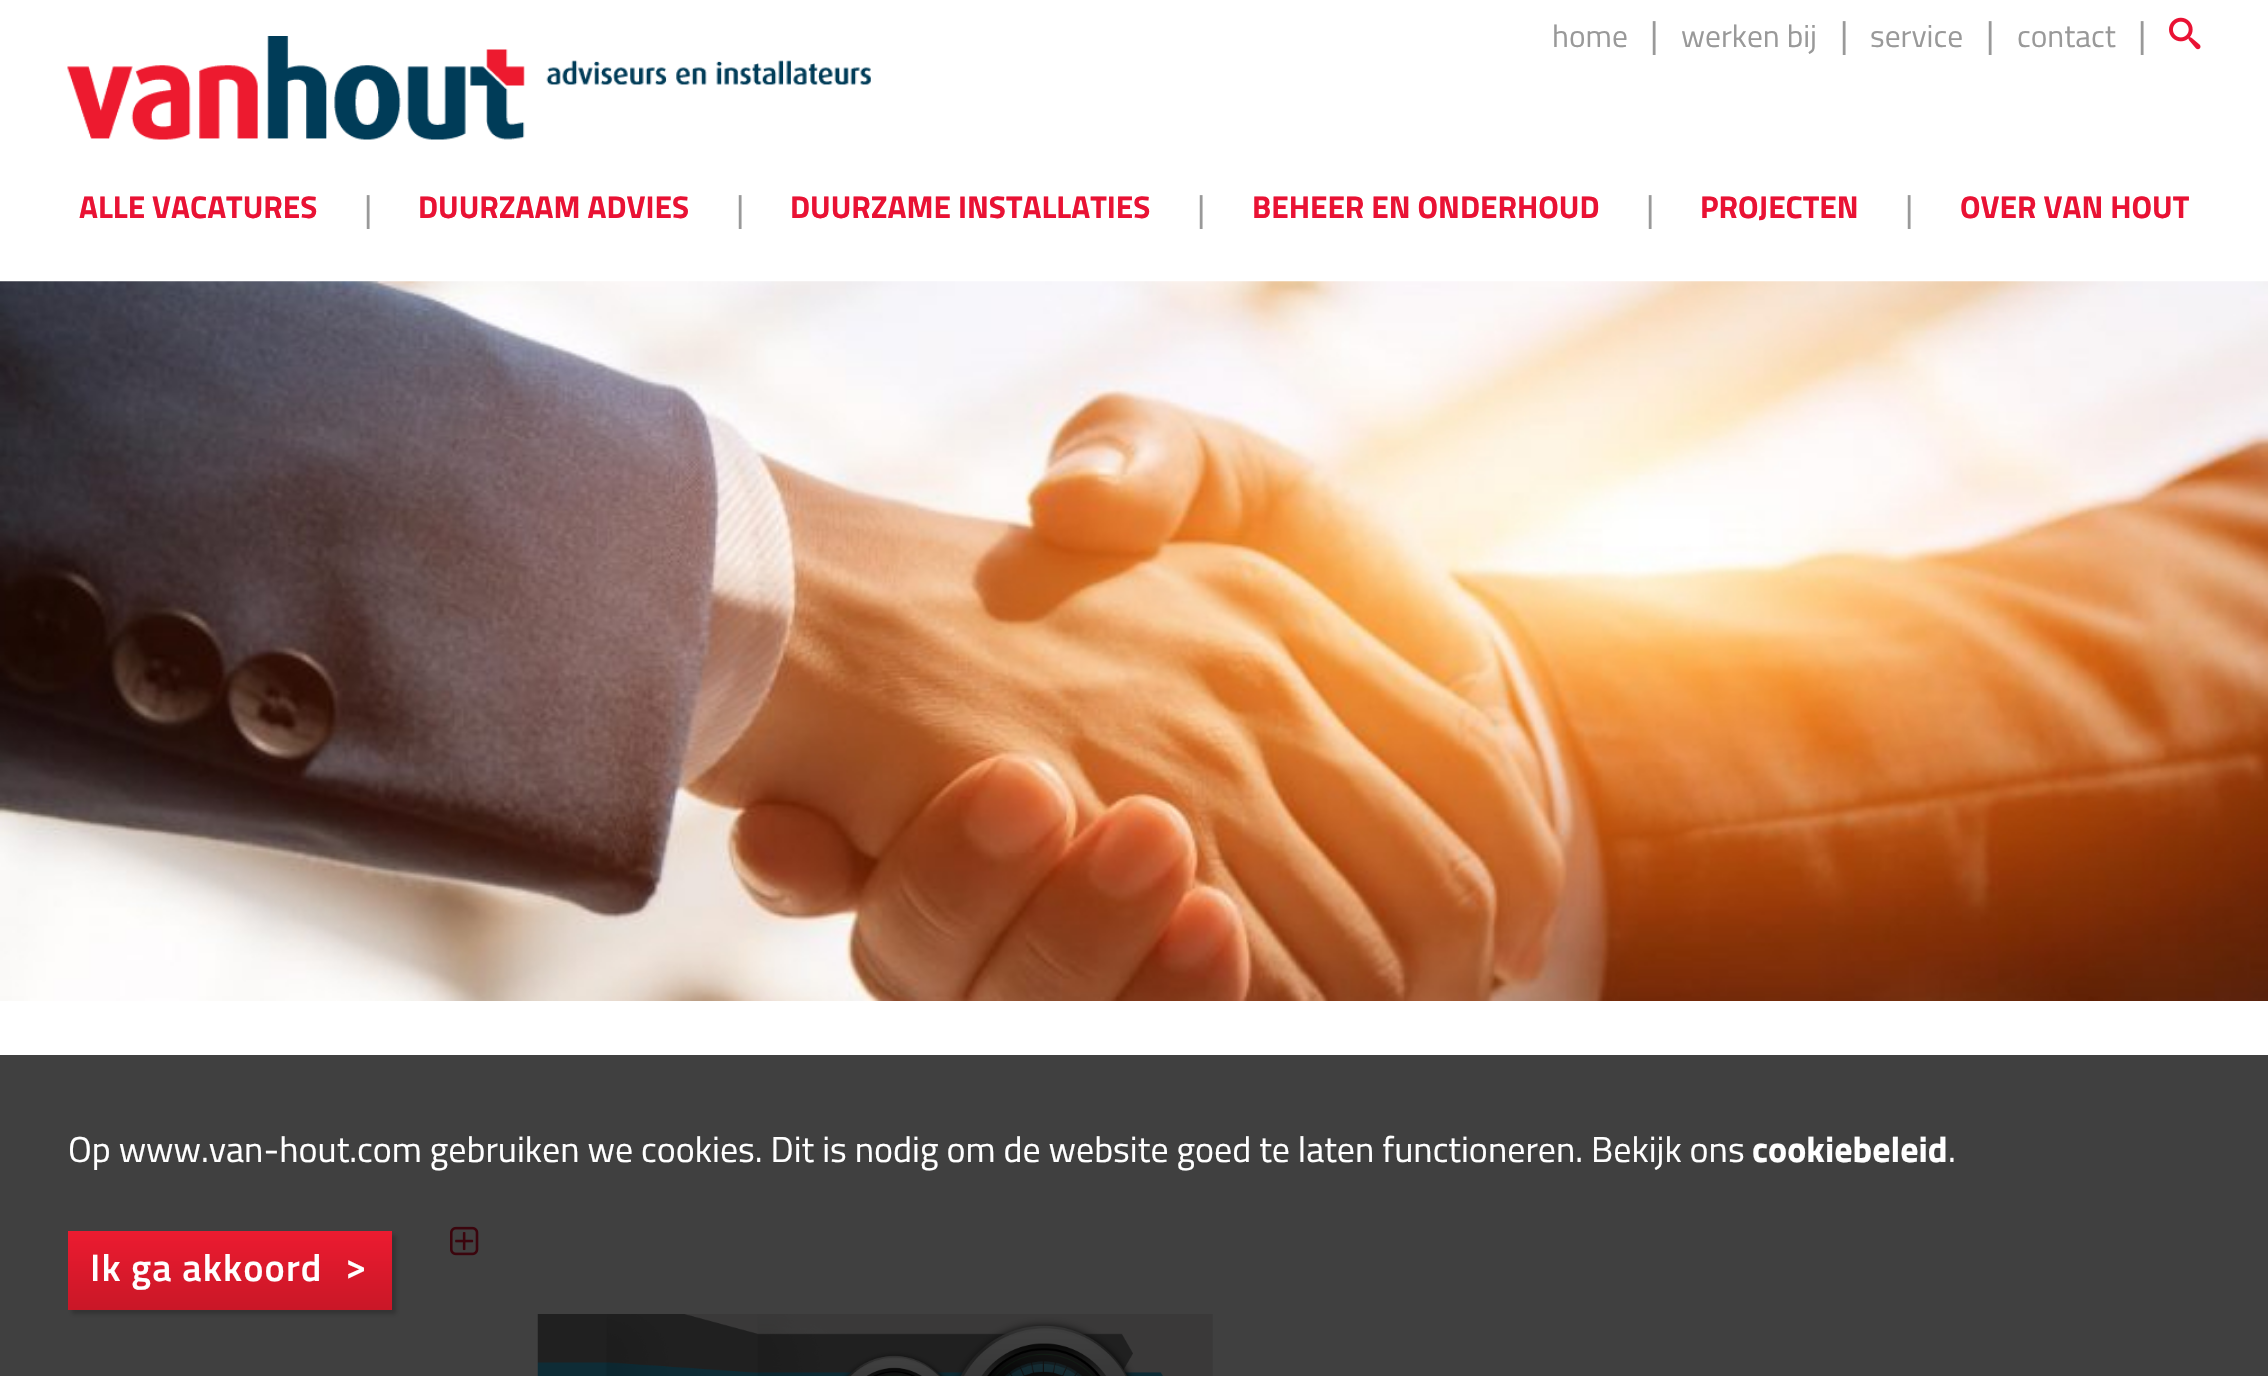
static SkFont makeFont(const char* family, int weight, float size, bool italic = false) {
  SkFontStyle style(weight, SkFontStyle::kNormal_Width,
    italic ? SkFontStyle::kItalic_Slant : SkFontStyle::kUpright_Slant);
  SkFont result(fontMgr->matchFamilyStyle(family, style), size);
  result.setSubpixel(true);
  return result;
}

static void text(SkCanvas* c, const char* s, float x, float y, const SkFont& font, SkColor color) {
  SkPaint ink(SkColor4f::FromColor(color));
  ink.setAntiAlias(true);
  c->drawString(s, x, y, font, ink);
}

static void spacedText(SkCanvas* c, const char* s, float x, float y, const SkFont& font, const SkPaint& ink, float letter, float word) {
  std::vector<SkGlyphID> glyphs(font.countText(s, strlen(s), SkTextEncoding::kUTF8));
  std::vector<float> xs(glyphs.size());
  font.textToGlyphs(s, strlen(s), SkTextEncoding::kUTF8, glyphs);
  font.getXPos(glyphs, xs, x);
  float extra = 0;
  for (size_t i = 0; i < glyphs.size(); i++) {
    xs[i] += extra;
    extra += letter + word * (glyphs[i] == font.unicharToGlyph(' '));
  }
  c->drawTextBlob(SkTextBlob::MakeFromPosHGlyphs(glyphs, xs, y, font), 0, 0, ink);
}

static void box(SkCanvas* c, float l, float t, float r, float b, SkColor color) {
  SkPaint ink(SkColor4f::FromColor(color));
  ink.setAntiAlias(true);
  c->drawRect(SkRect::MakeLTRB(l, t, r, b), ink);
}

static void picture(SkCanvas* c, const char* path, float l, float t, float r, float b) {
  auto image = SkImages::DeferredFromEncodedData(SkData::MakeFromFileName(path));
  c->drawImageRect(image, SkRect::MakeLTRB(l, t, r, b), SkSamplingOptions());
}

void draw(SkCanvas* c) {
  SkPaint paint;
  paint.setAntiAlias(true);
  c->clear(0xffffffff);
  picture(c, "img_01.png", 67, 36, 525, 140);
  picture(c, "img_02.png", 546, 60, 871, 85);
  SkFont face1 = makeFont("Titillium Web", 400, 31.5f);
  text(c, "home", 1552, 47, face1, 0xff999999);
  SkFont face2 = makeFont("Titillium Web", 400, 36);
  text(c, "|", 1650, 47, face2, 0xff999999);
  text(c, "werken bij", 1681, 47, face1, 0xff999999);
  text(c, "|", 1840, 47, face2, 0xff999999);
  text(c, "service", 1870, 47, face1, 0xff999999);
  text(c, "|", 1986, 47, face2, 0xff999999);
  text(c, "contact", 2017, 47, face1, 0xff999999);
  text(c, "|", 2138, 47, face2, 0xff999999);
  picture(c, "img_03.png", 2169, 17, 2201, 50);
  SkFont face3 = makeFont("Titillium Web", 700, 31.5f);
  text(c, "ALLE VACATURES", 79, 218, face3, 0xffe91234);
  text(c, "|", 364, 221, face2, 0xff999999);
  text(c, "DUURZAAM ADVIES", 418, 218, face3, 0xffe91234);
  text(c, "|", 736, 221, face2, 0xff999999);
  text(c, "DUURZAME INSTALLATIES", 790, 218, face3, 0xffe91234);
  text(c, "|", 1197, 221, face2, 0xff999999);
  text(c, "BEHEER EN ONDERHOUD", 1252, 218, face3, 0xffe91234);
  text(c, "|", 1646, 221, face2, 0xff999999);
  text(c, "PROJECTEN", 1700, 218, face3, 0xffe91234);
  text(c, "|", 1905, 221, face2, 0xff999999);
  text(c, "OVER VAN HOUT", 1960, 218, face3, 0xffe91234);
  picture(c, "img_04.png", 0, 281, 2268, 1001);
  picture(c, "img_05.png", 450, 1226, 479, 1256);
  picture(c, "img_06.png", 537, 1314, 1213, 1376);
  box(c, 0, 1055, 2268, 1376, 0xbf000000);
  text(c, "Op www.van-hout.com gebruiken we cookies. Dit is nodig om de website goed te laten functioneren. Bekijk ons", 68, 1162, face2, 0xffffffff);
  SkFont face4 = makeFont("Titillium Web", 700, 36);
  text(c, "cookiebeleid", 1752, 1162, face4, 0xffffffff);
  text(c, ".", 1948, 1162, face2, 0xffffffff);
  paint.setColor(0x33000000);
  paint.setMaskFilter(SkMaskFilter::MakeBlur(kNormal_SkBlurStyle, 2));
  c->drawRect(SkRect::MakeLTRB(72, 1235, 396, 1314), paint);
  paint.setMaskFilter(nullptr);
  {
    const SkColor colors[] = {0xffec1b30, 0xffc91727};
    const float stops[] = {0, 1};
    const SkPoint ends[] = {{230, 1231}, {230, 1310}};
    paint.setShader(SkGradientShader::MakeLinear(ends, colors, stops, 2, SkTileMode::kClamp));
    paint.setAlpha(255);
  }
  c->drawRect(SkRect::MakeLTRB(68, 1231, 392, 1310), paint);
  SkFont face5 = makeFont("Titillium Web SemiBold", 600, 38.25f);
  paint.setShader(nullptr);
  paint.setColor(0xffffffff);
  spacedText(c, "Ik ga akkoord", 90, 1281, face5, paint, 1.1f, 0);
  spacedText(c, ">", 345, 1279, face5, paint, 1.1f, 0);
}
